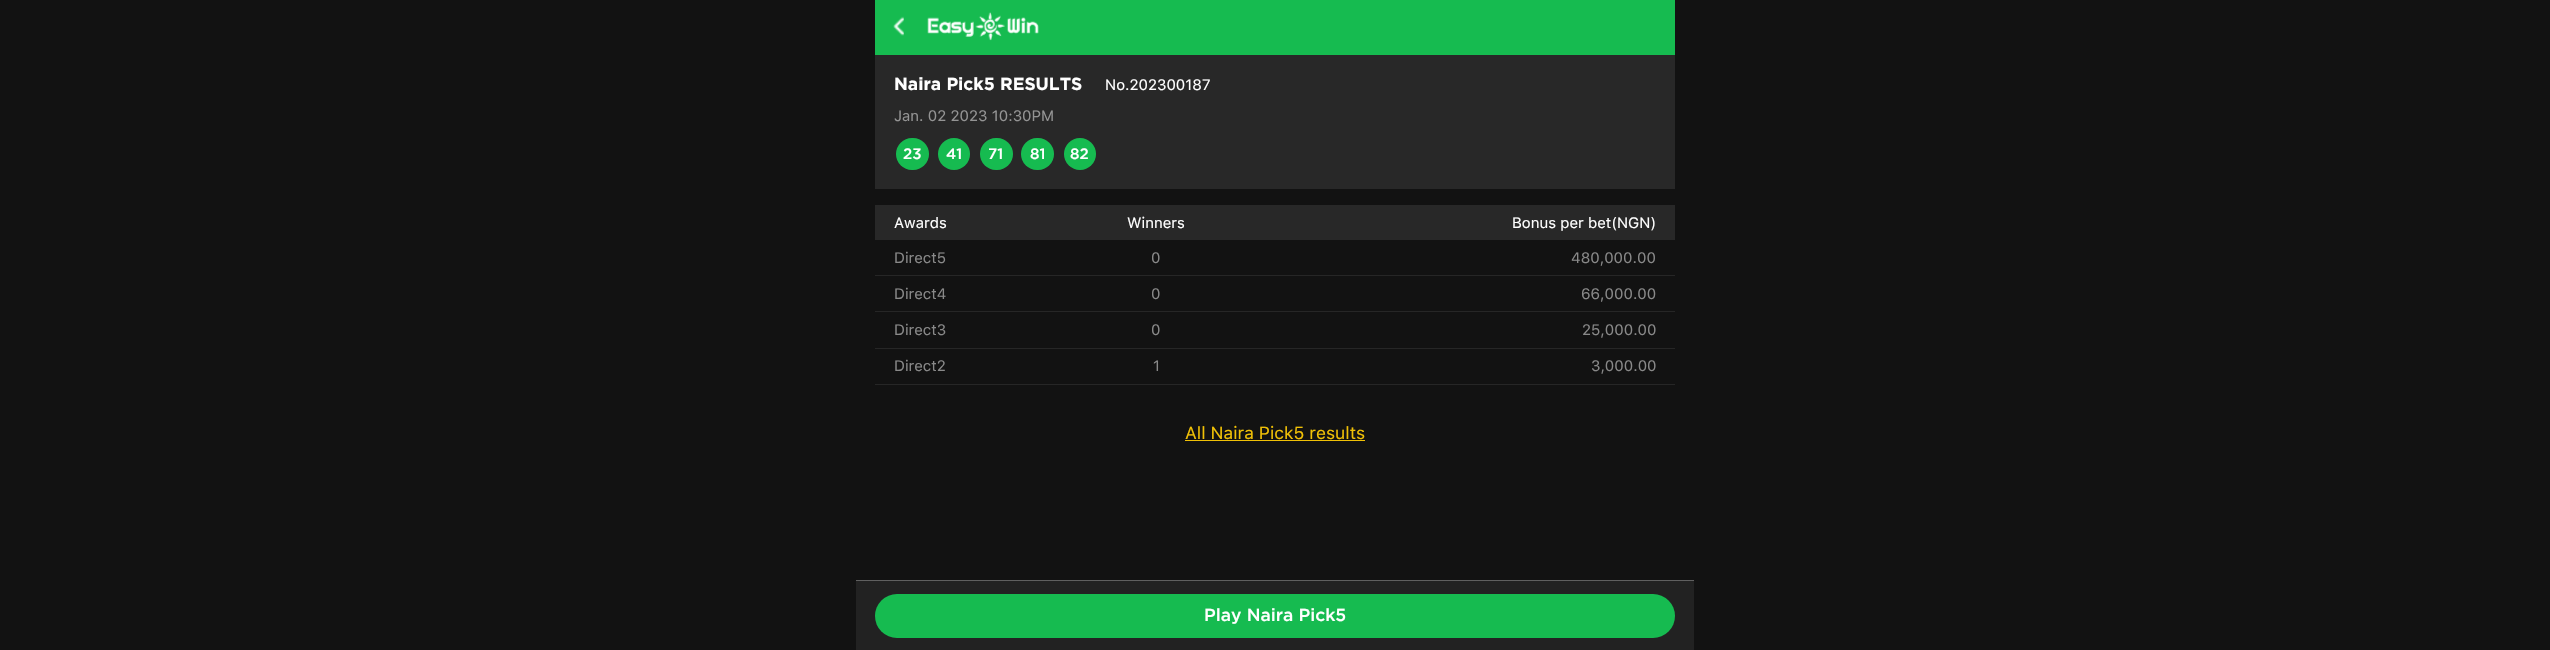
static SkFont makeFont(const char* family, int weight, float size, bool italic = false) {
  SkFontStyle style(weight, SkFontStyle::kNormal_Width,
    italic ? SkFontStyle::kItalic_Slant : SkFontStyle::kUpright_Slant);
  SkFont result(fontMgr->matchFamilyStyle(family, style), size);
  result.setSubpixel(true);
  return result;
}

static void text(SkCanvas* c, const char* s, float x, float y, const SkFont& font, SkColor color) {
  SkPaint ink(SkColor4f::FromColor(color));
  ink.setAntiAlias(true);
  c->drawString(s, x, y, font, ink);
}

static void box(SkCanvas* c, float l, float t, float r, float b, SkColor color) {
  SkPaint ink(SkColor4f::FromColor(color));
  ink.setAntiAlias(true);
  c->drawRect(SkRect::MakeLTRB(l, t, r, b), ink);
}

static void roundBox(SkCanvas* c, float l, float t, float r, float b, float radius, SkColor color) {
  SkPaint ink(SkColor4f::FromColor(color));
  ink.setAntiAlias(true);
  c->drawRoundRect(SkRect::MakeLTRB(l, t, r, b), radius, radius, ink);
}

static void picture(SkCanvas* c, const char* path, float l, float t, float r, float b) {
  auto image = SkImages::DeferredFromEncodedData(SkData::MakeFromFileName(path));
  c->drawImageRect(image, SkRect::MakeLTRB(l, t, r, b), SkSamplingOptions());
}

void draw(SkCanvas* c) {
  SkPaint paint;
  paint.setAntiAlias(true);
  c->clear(0xff121212);
  box(c, 875, 0, 1675, 55, 0xff16bb50);
  picture(c, "img_01.png", 893, 16, 904, 36);
  picture(c, "img_02.png", 927, 12, 1039, 41);
  box(c, 875, 55, 1675, 189, 0xff282828);
  SkFont face1 = makeFont("Gotham", 700, 17.5f);
  text(c, "Naira Pick5 RESULTS", 894, 90, face1, 0xffffffff);
  SkFont face2 = makeFont("SF Pro Text", 400, 15);
  text(c, "No.202300187", 1105, 90, face2, 0xffffffff);
  text(c, "Jan. 02 2023 10:30PM", 894, 121, face2, 0xff949494);
  roundBox(c, 896, 138, 929, 170, 16, 0xff16bb50);
  SkFont face3 = makeFont("Gotham", 500, 15);
  text(c, "23", 903, 159, face3, 0xffffffff);
  paint.setColor(0xff16bb50);
  c->drawCircle(954, 154, 16, paint);
  text(c, "41", 946, 159, face3, 0xffffffff);
  roundBox(c, 980, 138, 1013, 170, 16, 0xff16bb50);
  text(c, "71", 988, 159, face3, 0xffffffff);
  roundBox(c, 1021, 138, 1054, 170, 16, 0xff16bb50);
  text(c, "81", 1030, 159, face3, 0xffffffff);
  c->drawCircle(1080, 154, 16, paint);
  text(c, "82", 1070, 159, face3, 0xffffffff);
  box(c, 875, 205, 1675, 240, 0xff282828);
  text(c, "Awards", 894, 228, face2, 0xffffffff);
  text(c, "Winners", 1127, 228, face2, 0xffffffff);
  text(c, "Bonus per bet(NGN)", 1512, 228, face2, 0xffffffff);
  box(c, 875, 275, 1675, 276, 0xff262626);
  text(c, "Direct5", 894, 263, face2, 0xff898989);
  text(c, "0", 1151, 263, face2, 0xff898989);
  text(c, "480,000.00", 1571, 263, face2, 0xff898989);
  box(c, 875, 311, 1675, 312, 0xff262626);
  text(c, "Direct4", 894, 299, face2, 0xff898989);
  text(c, "0", 1151, 299, face2, 0xff898989);
  text(c, "66,000.00", 1581, 299, face2, 0xff898989);
  box(c, 875, 348, 1675, 349, 0xff262626);
  text(c, "Direct3", 894, 335, face2, 0xff898989);
  text(c, "0", 1151, 335, face2, 0xff898989);
  text(c, "25,000.00", 1582, 335, face2, 0xff898989);
  box(c, 875, 384, 1675, 385, 0xff262626);
  text(c, "Direct2", 894, 371, face2, 0xff898989);
  text(c, "1", 1153, 371, face2, 0xff898989);
  text(c, "3,000.00", 1591, 371, face2, 0xff898989);
  SkFont face4 = makeFont("SF Pro Text", 400, 17.5f);
  text(c, "All Naira Pick5 results", 1185, 439, face4, 0xfff0c006);
  box(c, 1185, 440, 1365, 441, 0xfff0c006);
  box(c, 856, 581, 1694, 650, 0xff222222);
  box(c, 856, 580, 1694, 581, 0xff606060);
  roundBox(c, 875, 594, 1675, 638, 22, 0xff16bb50);
  SkFont face5 = makeFont("Gotham", 500, 17.5f);
  text(c, "Play Naira Pick5", 1204, 621, face5, 0xffffffff);
}
